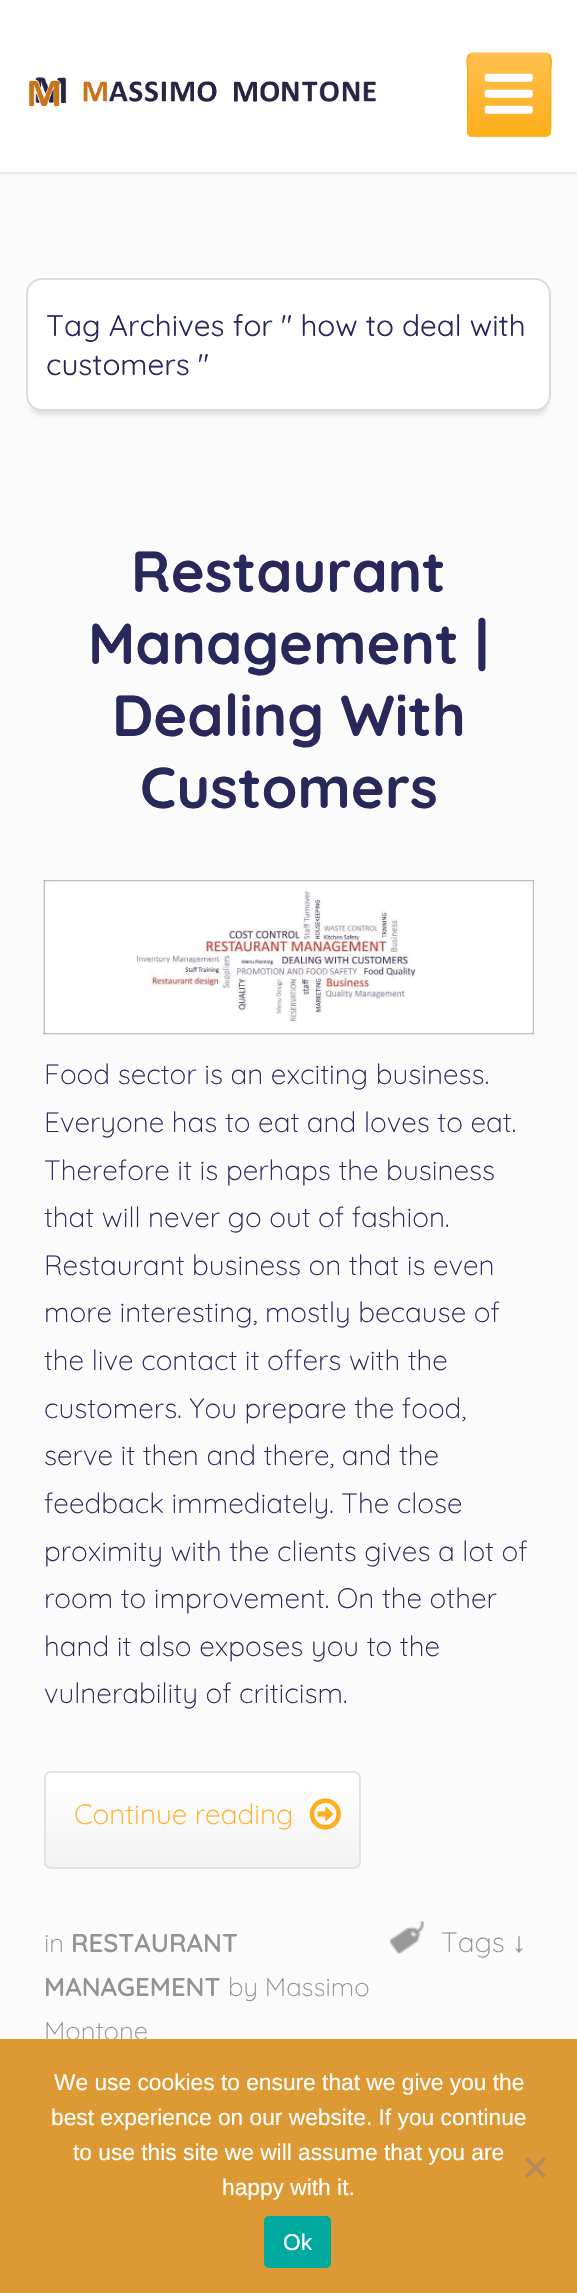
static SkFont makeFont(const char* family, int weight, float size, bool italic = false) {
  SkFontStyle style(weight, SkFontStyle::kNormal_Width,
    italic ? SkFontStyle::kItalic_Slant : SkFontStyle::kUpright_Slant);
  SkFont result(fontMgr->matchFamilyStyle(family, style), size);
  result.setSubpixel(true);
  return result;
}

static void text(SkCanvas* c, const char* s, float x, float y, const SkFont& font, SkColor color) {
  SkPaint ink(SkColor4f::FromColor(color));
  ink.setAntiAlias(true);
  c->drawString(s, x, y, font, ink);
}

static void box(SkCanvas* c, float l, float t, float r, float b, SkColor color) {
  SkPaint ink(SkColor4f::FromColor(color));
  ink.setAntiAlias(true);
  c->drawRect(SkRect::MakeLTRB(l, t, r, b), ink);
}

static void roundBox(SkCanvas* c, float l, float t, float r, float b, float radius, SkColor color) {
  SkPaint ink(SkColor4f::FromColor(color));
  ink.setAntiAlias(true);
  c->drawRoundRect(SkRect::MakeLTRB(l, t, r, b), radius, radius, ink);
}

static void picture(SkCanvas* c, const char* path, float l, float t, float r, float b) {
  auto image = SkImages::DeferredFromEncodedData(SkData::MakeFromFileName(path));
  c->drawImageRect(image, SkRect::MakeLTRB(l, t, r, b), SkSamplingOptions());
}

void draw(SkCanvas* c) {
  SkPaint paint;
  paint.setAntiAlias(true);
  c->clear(0xfffbfbfb);
  box(c, 0, 0, 577, 172, 0xffffffff);
  box(c, 0, 172, 577, 174, 0xffebebeb);
  picture(c, "img_01.png", 29, 77, 376, 107);
  c->save();
  c->clipPath(SkPathBuilder().moveTo(472, 53).lineTo(546, 53).cubicTo(549, 53, 551, 55, 551, 58).lineTo(551, 132).cubicTo(551, 135, 549, 137, 546, 137).lineTo(472, 137).cubicTo(469, 137, 467, 135, 467, 132).lineTo(467, 58).cubicTo(467, 55, 469, 53, 472, 53).close().detach(), true);
  {
    const SkColor colors[] = {0xfffec04e, 0xfffeae1b};
    const float stops[] = {0, 1};
    const SkPoint ends[] = {{509, 54}, {509, 135}};
    paint.setShader(SkGradientShader::MakeLinear(ends, colors, stops, 2, SkTileMode::kClamp));
    paint.setAlpha(255);
  }
  c->drawRect(SkRect::MakeLTRB(467, 54, 551, 135), paint);
  {
    const SkColor colors[] = {0xfffec04e, 0xfffeae1b};
    const float stops[] = {0, 1};
    const SkPoint ends[] = {{509, 135}, {509, 215}};
    paint.setShader(SkGradientShader::MakeLinear(ends, colors, stops, 2, SkTileMode::kClamp));
    paint.setAlpha(255);
  }
  c->drawRect(SkRect::MakeLTRB(467, 135, 551, 137), paint);
  c->restore();
  paint.setStyle(SkPaint::kStroke_Style);
  paint.setStrokeWidth(1.8f);
  paint.setShader(nullptr);
  paint.setColor(0xfffec04e);
  c->drawPath(SkPathBuilder().moveTo(469.5f, 54.5f).lineTo(472, 53.5f).lineTo(546.5f, 53.5f).lineTo(549, 54.5f).detach(), paint);
  paint.setColor(0xfffeae1b);
  c->drawPath(SkPathBuilder().moveTo(549, 54.5f).cubicTo(552.5f, 58, 550.5f, 70, 550.5f, 70).lineTo(550.5f, 119).cubicTo(550.5f, 138, 552.5f, 135.5f, 534, 135.5f).lineTo(485, 135.5f).cubicTo(466, 135.5f, 468, 138, 468, 119).lineTo(468, 70).cubicTo(468, 70, 466, 58, 469.5f, 54.5f).detach(), paint);
  picture(c, "img_02.png", 484, 73, 533, 114);
  paint.setStyle(SkPaint::kFill_Style);
  paint.setColor(0xffe0e0e0);
  paint.setMaskFilter(SkMaskFilter::MakeBlur(kNormal_SkBlurStyle, 2));
  c->drawRoundRect(SkRect::MakeLTRB(30, 289, 548, 415), 12, 12, paint);
  paint.setMaskFilter(nullptr);
  paint.setColor(0xffffffff);
  c->drawRoundRect(SkRect::MakeLTRB(27, 279, 550, 410), 15, 15, paint);
  paint.setStyle(SkPaint::kStroke_Style);
  paint.setStrokeWidth(2);
  paint.setColor(0xffdbdbdb);
  c->drawRoundRect(SkRect::MakeLTRB(27, 279, 550, 410), 15, 15, paint);
  SkFont face1 = makeFont("Quicksand", 400, 29.75f);
  text(c, "Tag Archives for \" how to deal with", 46, 336, face1, 0xff28285b);
  text(c, "customers \"", 46, 375, face1, 0xff28285b);
  SkFont face2 = makeFont("Quicksand", 700, 57.75f);
  text(c, "Restaurant", 131, 592, face2, 0xff28285b);
  text(c, "Management |", 88, 664, face2, 0xff28285b);
  text(c, "Dealing With", 112, 736, face2, 0xff28285b);
  text(c, "Customers", 140, 808, face2, 0xff28285b);
  picture(c, "img_03.png", 43, 880, 534, 1035);
  SkFont face3 = makeFont("Quicksand", 300, 28);
  text(c, "Food sector is an exciting business.", 44, 1084, face3, 0xff28285b);
  text(c, "Everyone has to eat and loves to eat.", 44, 1132, face3, 0xff28285b);
  text(c, "Therefore it is perhaps the business", 44, 1180, face3, 0xff28285b);
  text(c, "that will never go out of fashion.", 44, 1227, face3, 0xff28285b);
  text(c, "Restaurant business on that is even", 44, 1275, face3, 0xff28285b);
  text(c, "more interesting, mostly because of", 44, 1322, face3, 0xff28285b);
  text(c, "the live contact it offers with the", 44, 1370, face3, 0xff28285b);
  text(c, "customers. You prepare the food,", 44, 1418, face3, 0xff28285b);
  text(c, "serve it then and there, and the", 44, 1465, face3, 0xff28285b);
  text(c, "feedback immediately. The close", 44, 1513, face3, 0xff28285b);
  text(c, "proximity with the clients gives a lot of", 44, 1561, face3, 0xff28285b);
  text(c, "room to improvement. On the other", 44, 1608, face3, 0xff28285b);
  text(c, "hand it also exposes you to the", 44, 1656, face3, 0xff28285b);
  text(c, "vulnerability of criticism.", 44, 1703, face3, 0xff28285b);
  c->save();
  c->clipPath(SkPathBuilder().moveTo(51, 1771).lineTo(354, 1771).cubicTo(358, 1771, 361, 1774, 361, 1778).lineTo(361, 1862).cubicTo(361, 1866, 358, 1869, 354, 1869).lineTo(51, 1869).cubicTo(47, 1869, 44, 1866, 44, 1862).lineTo(44, 1778).cubicTo(44, 1774, 47, 1771, 51, 1771).close().detach(), true);
  paint.setStyle(SkPaint::kFill_Style);
  {
    const SkColor colors[] = {0xffffffff, 0xfff3f3f3};
    const float stops[] = {0, 1};
    const SkPoint ends[] = {{202, 1773}, {202, 1867}};
    paint.setShader(SkGradientShader::MakeLinear(ends, colors, stops, 2, SkTileMode::kClamp));
    paint.setAlpha(255);
  }
  c->drawRect(SkRect::MakeLTRB(44, 1773, 361, 1867), paint);
  c->restore();
  paint.setShader(nullptr);
  paint.setColor(0xfff6f6f6);
  c->drawPath(SkPathBuilder().moveTo(46, 1860).lineTo(46, 1862).cubicTo(46, 1865, 48, 1867, 51, 1867).lineTo(354, 1867).cubicTo(357, 1867, 359, 1865, 359, 1862).lineTo(359, 1860).cubicTo(359, 1863, 356, 1866, 354, 1866).lineTo(51, 1866).cubicTo(48, 1866, 46, 1863, 46, 1860).close().detach(), paint);
  paint.setStyle(SkPaint::kStroke_Style);
  paint.setColor(0xffe3e3e3);
  c->drawRoundRect(SkRect::MakeLTRB(45, 1772, 360, 1868), 6, 6, paint);
  text(c, "Continue reading", 74, 1824, face3, 0xfffeae1b);
  picture(c, "img_04.png", 309, 1798, 341, 1830);
  SkFont face4 = makeFont("Quicksand", 300, 25.75f);
  text(c, "in", 44, 1952, face4, 0xff939393);
  SkFont face5 = makeFont("Quicksand", 600, 25.75f);
  text(c, "RESTAURANT", 71, 1952, face5, 0xff939393);
  text(c, "MANAGEMENT", 44, 1996, face5, 0xff939393);
  text(c, "by Massimo", 228, 1996, face4, 0xff939393);
  text(c, "Montone", 44, 2040, face4, 0xff939393);
  picture(c, "img_05.png", 389, 1921, 424, 1954);
  text(c, "Tags", 441, 1952, face3, 0xff939393);
  SkFont face6 = makeFont("Liberation Sans", 400, 28);
  text(c, "↓", 512, 1952, face6, 0xff939393);
  box(c, 0, 2039, 577, 2293, 0xffdd9933);
  SkFont face7 = makeFont("Liberation Sans", 400, 22.75f);
  text(c, "We use cookies to ensure that we give you the", 54, 2090, face7, 0xffffffff);
  text(c, "best experience on our website. If you continue", 51, 2125, face7, 0xffffffff);
  text(c, "to use this site we will assume that you are", 73, 2160, face7, 0xffffffff);
  text(c, "happy with it.", 222, 2195, face7, 0xffffffff);
  paint.setStyle(SkPaint::kFill_Style);
  paint.setColor(0xffaf8d5a);
  c->drawPath(SkPathBuilder().moveTo(543.5f, 2157).lineTo(546, 2159.5f).lineTo(527.5f, 2178).lineTo(525, 2175.5f).close().detach(), paint);
  c->drawPath(SkPathBuilder().moveTo(525, 2159.5f).lineTo(527.5f, 2157).lineTo(546, 2175.5f).lineTo(543.5f, 2178).close().detach(), paint);
  roundBox(c, 264, 2216, 331, 2268, 5, 0xff00a99d);
  text(c, "Ok", 283, 2250, face7, 0xffffffff);
}
